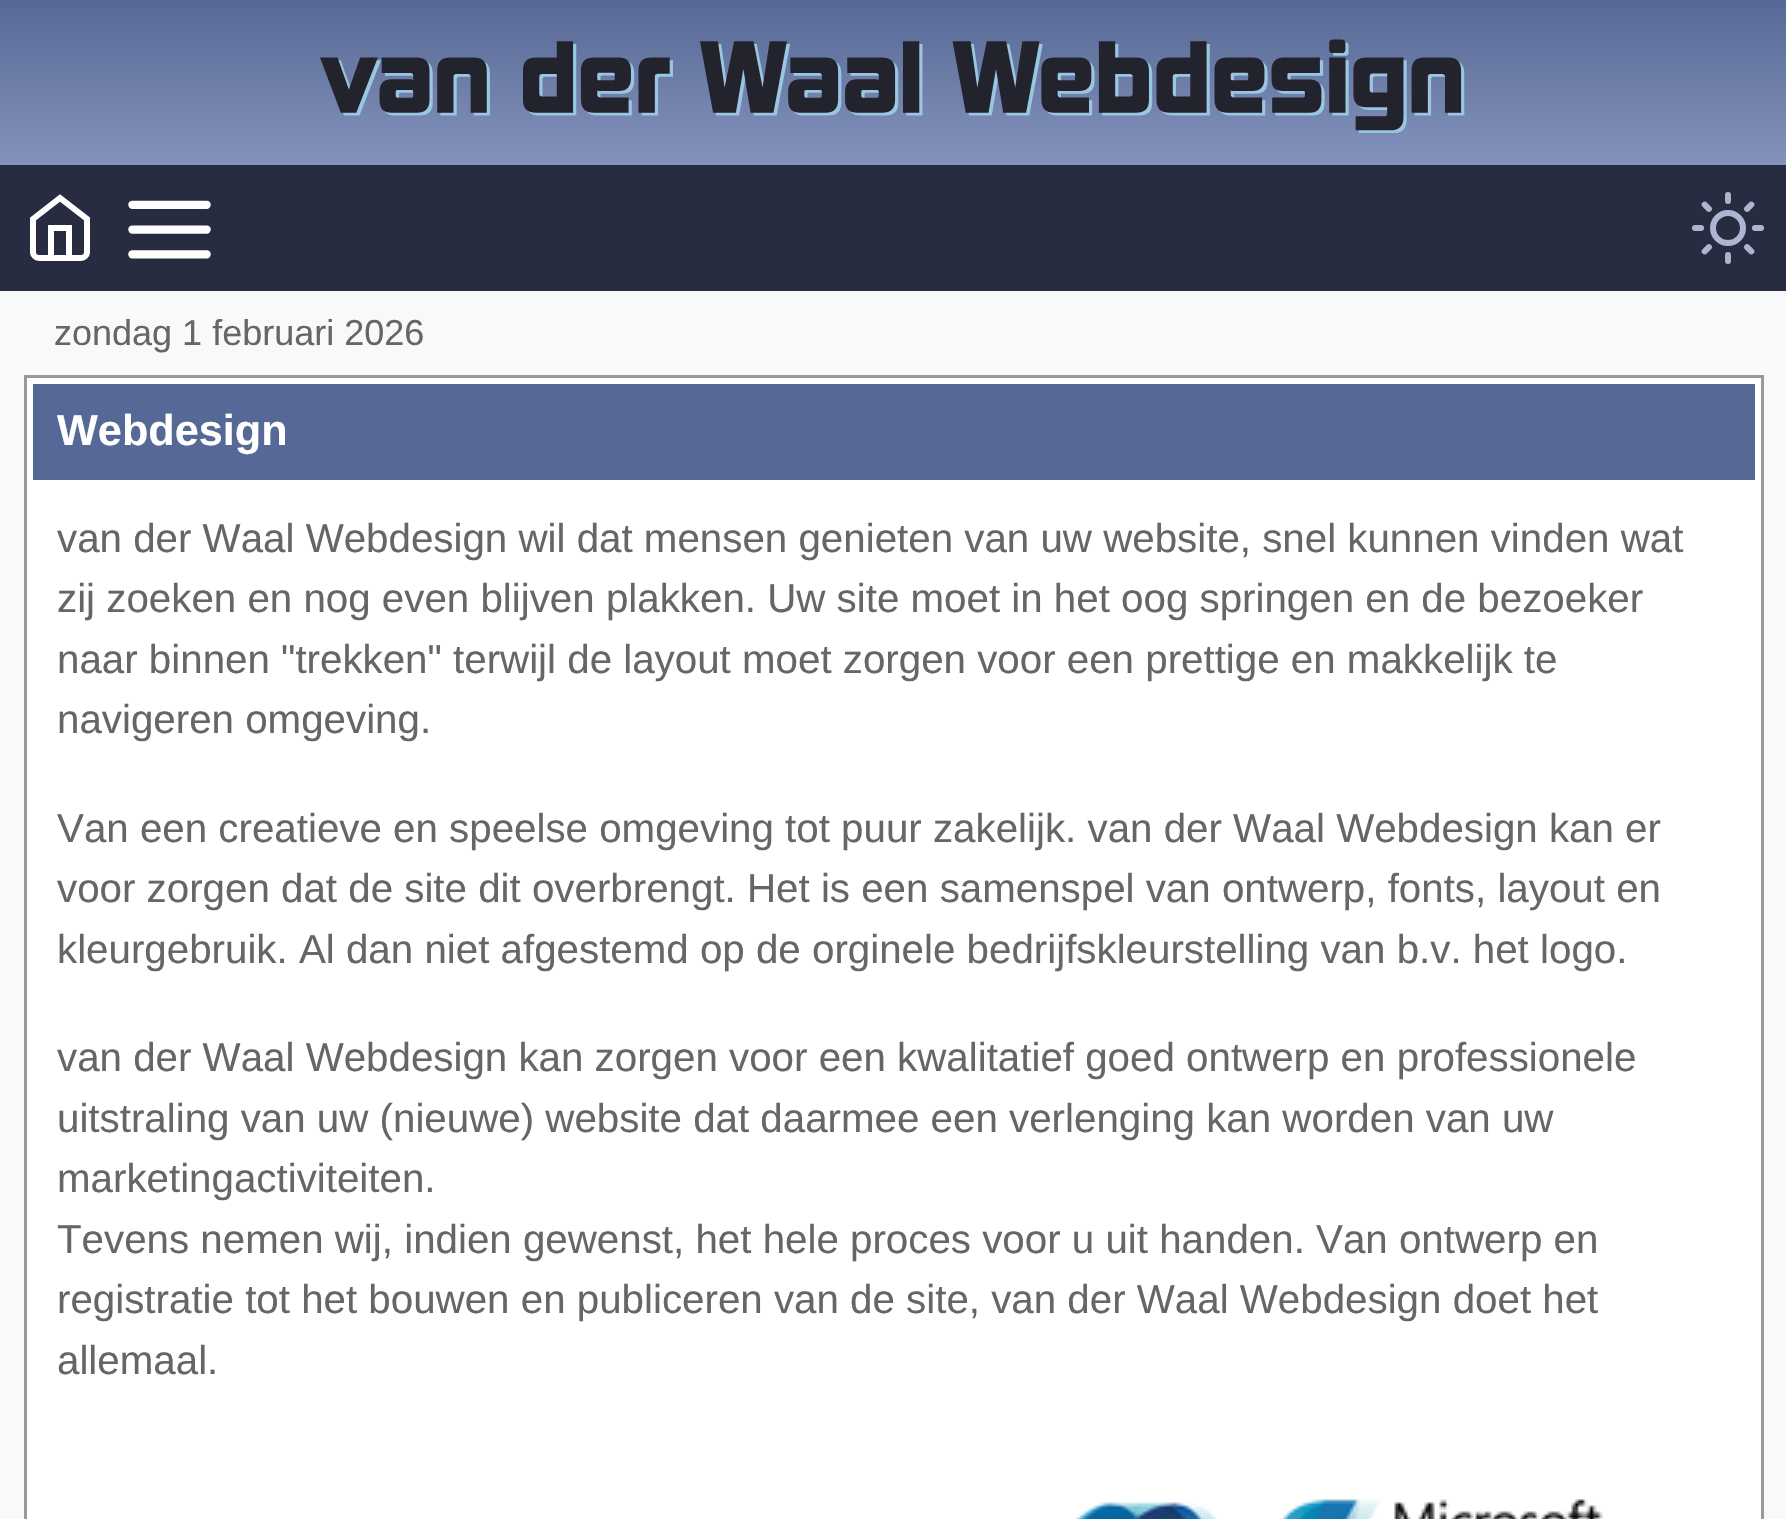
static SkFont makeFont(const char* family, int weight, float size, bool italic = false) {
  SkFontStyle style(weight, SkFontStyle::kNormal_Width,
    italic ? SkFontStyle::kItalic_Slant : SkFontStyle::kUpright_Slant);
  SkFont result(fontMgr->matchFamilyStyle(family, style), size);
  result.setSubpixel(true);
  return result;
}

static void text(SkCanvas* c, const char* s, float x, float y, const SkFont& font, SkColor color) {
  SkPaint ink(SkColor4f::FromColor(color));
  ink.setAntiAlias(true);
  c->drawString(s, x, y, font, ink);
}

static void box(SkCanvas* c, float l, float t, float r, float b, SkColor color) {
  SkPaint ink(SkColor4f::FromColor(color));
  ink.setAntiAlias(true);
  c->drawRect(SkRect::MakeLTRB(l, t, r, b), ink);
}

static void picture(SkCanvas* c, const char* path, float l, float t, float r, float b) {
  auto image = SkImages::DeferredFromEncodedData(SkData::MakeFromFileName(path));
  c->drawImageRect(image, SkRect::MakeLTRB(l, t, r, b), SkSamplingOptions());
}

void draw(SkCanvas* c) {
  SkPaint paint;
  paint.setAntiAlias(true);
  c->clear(0xffffffff);
  {
    const SkColor colors[] = {0xff566895, 0xff8493bc};
    const float stops[] = {0, 1};
    const SkPoint ends[] = {{894, 0}, {894, 165}};
    paint.setShader(SkGradientShader::MakeLinear(ends, colors, stops, 2, SkTileMode::kClamp));
    paint.setAlpha(255);
  }
  c->drawRect(SkRect::MakeLTRB(0, 0, 1786, 165), paint);
  picture(c, "img_01.png", 320, 39, 1465, 133);
  box(c, 0, 165, 1786, 291, 0xff282c41);
  picture(c, "img_02.png", 30, 194, 90, 261);
  picture(c, "img_03.png", 128, 200, 211, 259);
  picture(c, "img_04.png", 1692, 192, 1764, 264);
  box(c, 0, 291, 1786, 1519, 0xfff8f9fa);
  SkFont face1 = makeFont("Liberation Sans", 400, 36);
  text(c, "zondag 1 februari 2026", 54, 345, face1, 0xff666666);
  paint.setShader(nullptr);
  paint.setColor(0xffffffff);
  c->drawRect(SkRect::MakeLTRB(25.5f, 376.5f, 1762.5f, 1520.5f), paint);
  paint.setStyle(SkPaint::kStroke_Style);
  paint.setStrokeWidth(3);
  paint.setColor(0xff999999);
  c->drawRect(SkRect::MakeLTRB(25.5f, 376.5f, 1762.5f, 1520.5f), paint);
  box(c, 33, 384, 1755, 480, 0xff566895);
  SkFont face2 = makeFont("Liberation Sans", 700, 43.25f);
  text(c, "Webdesign", 57, 445, face2, 0xffffffff);
  SkFont face3 = makeFont("Liberation Sans", 400, 40.3f);
  text(c, "van der Waal Webdesign wil dat mensen genieten van uw website, snel kunnen vinden wat", 57, 552, face3, 0xff666666);
  text(c, "zij zoeken en nog even blijven plakken. Uw site moet in het oog springen en de bezoeker", 57, 612, face3, 0xff666666);
  text(c, "naar binnen \"trekken\" terwijl de layout moet zorgen voor een prettige en makkelijk te", 57, 673, face3, 0xff666666);
  text(c, "navigeren omgeving.", 57, 733, face3, 0xff666666);
  text(c, "Van een creatieve en speelse omgeving tot puur zakelijk. van der Waal Webdesign kan er", 57, 842, face3, 0xff666666);
  text(c, "voor zorgen dat de site dit overbrengt. Het is een samenspel van ontwerp, fonts, layout en", 57, 902, face3, 0xff666666);
  text(c, "kleurgebruik. Al dan niet afgestemd op de orginele bedrijfskleurstelling van b.v. het logo.", 57, 963, face3, 0xff666666);
  text(c, "van der Waal Webdesign kan zorgen voor een kwalitatief goed ontwerp en professionele", 57, 1071, face3, 0xff666666);
  text(c, "uitstraling van uw (nieuwe) website dat daarmee een verlenging kan worden van uw", 57, 1132, face3, 0xff666666);
  text(c, "marketingactiviteiten.", 57, 1192, face3, 0xff666666);
  text(c, "Tevens nemen wij, indien gewenst, het hele proces voor u uit handen. Van ontwerp en", 57, 1253, face3, 0xff666666);
  text(c, "registratie tot het bouwen en publiceren van de site, van der Waal Webdesign doet het", 57, 1313, face3, 0xff666666);
  text(c, "allemaal.", 57, 1374, face3, 0xff666666);
  picture(c, "img_05.png", 1076, 1499, 1603, 1519);
}
